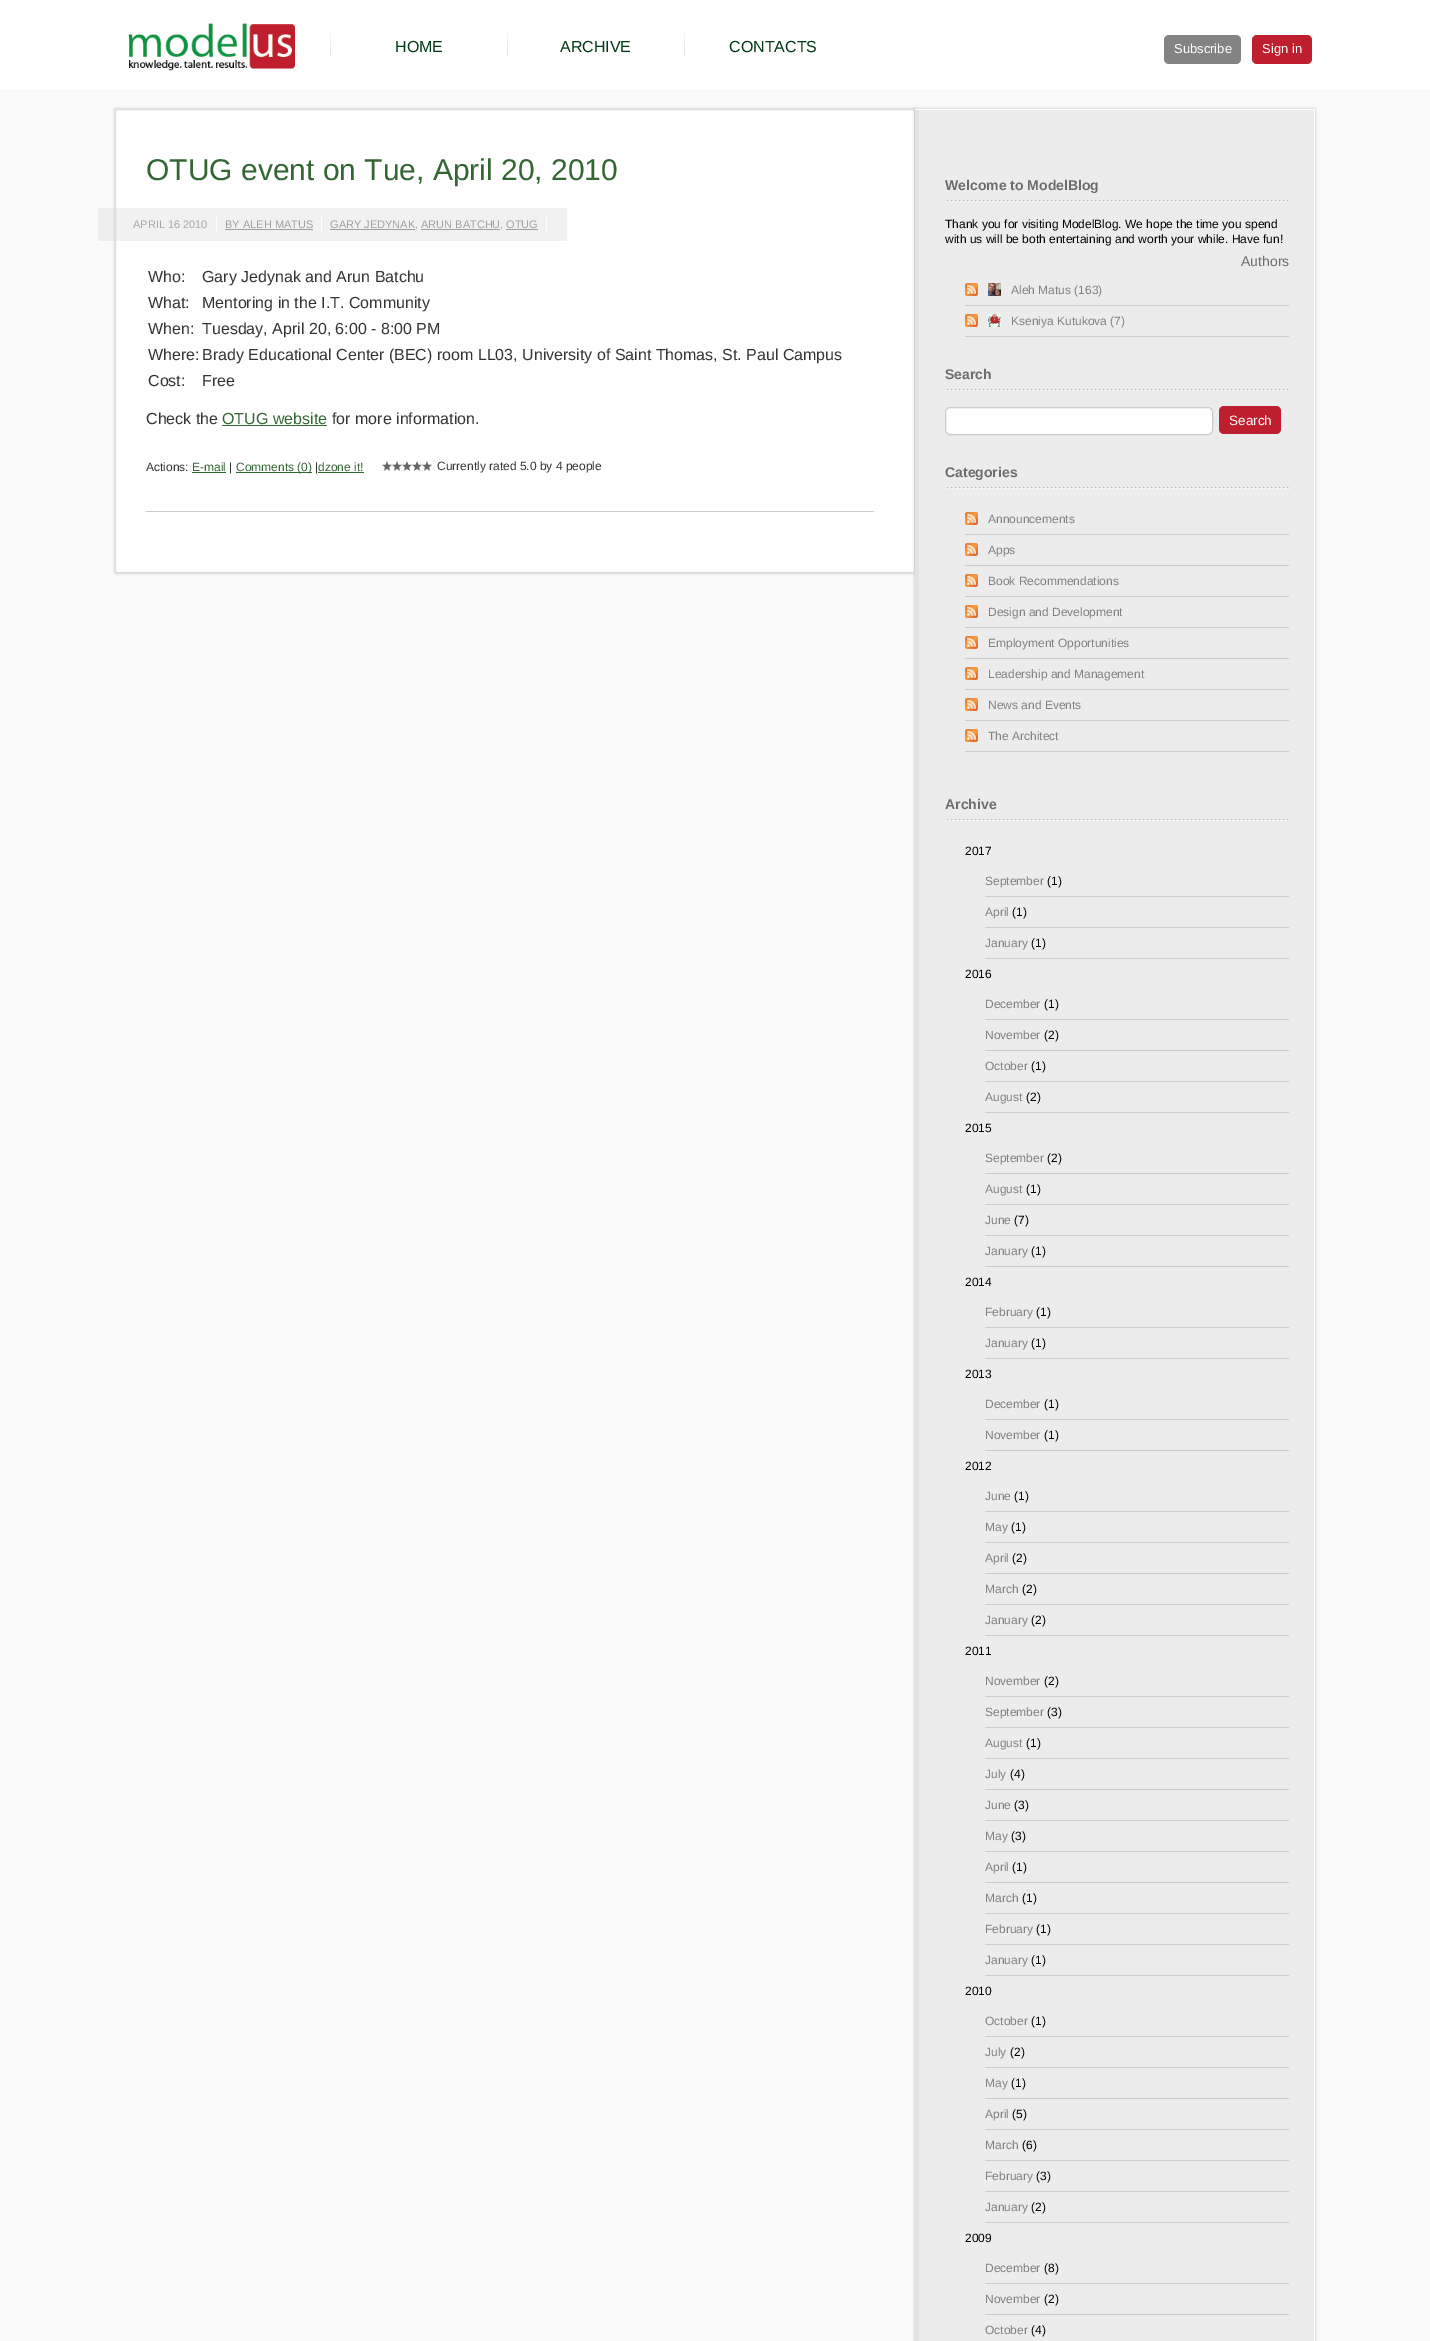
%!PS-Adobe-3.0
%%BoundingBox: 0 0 1430 2341
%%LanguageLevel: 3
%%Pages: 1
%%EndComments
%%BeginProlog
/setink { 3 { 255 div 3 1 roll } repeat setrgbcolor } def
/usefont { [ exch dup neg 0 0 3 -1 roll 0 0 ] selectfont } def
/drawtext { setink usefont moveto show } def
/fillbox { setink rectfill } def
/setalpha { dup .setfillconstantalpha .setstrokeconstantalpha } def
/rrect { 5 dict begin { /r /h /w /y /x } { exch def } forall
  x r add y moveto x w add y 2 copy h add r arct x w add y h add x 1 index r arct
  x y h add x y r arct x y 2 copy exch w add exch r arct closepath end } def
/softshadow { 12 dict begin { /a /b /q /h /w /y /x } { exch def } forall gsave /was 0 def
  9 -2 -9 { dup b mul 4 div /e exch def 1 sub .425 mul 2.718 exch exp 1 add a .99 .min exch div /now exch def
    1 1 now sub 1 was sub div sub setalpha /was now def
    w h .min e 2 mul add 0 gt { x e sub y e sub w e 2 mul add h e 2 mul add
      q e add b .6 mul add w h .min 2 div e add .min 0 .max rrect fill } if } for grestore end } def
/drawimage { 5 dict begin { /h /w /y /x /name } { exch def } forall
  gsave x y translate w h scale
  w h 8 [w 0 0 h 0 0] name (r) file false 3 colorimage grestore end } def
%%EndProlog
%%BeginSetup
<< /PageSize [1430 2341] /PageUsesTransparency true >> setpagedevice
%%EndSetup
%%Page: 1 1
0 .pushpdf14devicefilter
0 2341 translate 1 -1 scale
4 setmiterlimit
0 0 1430 2341 250 250 250 fillbox
0 0 1430 89 255 255 255 fillbox
(assets/img1.rgb) 128 23 167 48 drawimage
(assets/img2.rgb) 330 28 1 28 drawimage
(HOME) 395 52 /LiberationSans-Regular 16 1 56 21 drawtext
(assets/img2.rgb) 507 28 1 28 drawimage
(ARCHIVE) 560 52 /LiberationSans-Regular 16 1 56 21 drawtext
(assets/img2.rgb) 684 28 1 28 drawimage
(CONTACTS) 729 52 /LiberationSans-Regular 16 1 56 21 drawtext
131 131 131 setink
1164 35 77 29 5 rrect fill
(Subscribe) 1174 53 /LiberationSans-Regular 13 255 255 255 drawtext
190 30 45 setink
1252 35 60 29 5 rrect fill
(Sign in) 1262 53 /LiberationSans-Regular 13 255 255 255 drawtext
192 192 192 setink
115 109 800 464 0 1.5 1 softshadow
255 255 255 setink
115.5 109.5 moveto 914.5 109.5 lineto 914.5 572.5 lineto 115.5 572.5 lineto closepath gsave fill grestore
221 221 221 setink
stroke
146 511 728 1 204 204 204 fillbox
(OTUG event on Tue, April 20, 2010) 146 180 /LiberationSans-Regular 30 51 102 51 drawtext
0.4 setalpha
98 208 469 33 220 220 220 fillbox
1 setalpha
216 216 1 17 255 255 255 fillbox
(APRIL 16 2010) 133 228 /LiberationSans-Regular 11 166 166 166 drawtext
321 216 1 17 255 255 255 fillbox
(BY ALEH MATUS) 225 228 /LiberationSans-Regular 11 159 159 159 drawtext
225 229 88 1 159 159 159 fillbox
546 216 1 17 255 255 255 fillbox
(GARY JEDYNAK) 330 228 /LiberationSans-Regular 11 159 159 159 drawtext
330 229 85 1 159 159 159 fillbox
(,) 415 228 /LiberationSans-Regular 11 166 166 166 drawtext
(ARUN BATCHU) 421 228 /LiberationSans-Regular 11 159 159 159 drawtext
421 229 79 1 159 159 159 fillbox
(,) 500 228 /LiberationSans-Regular 11 166 166 166 drawtext
(OTUG) 506 228 /LiberationSans-Regular 11 159 159 159 drawtext
506 229 32 1 159 159 159 fillbox
(Who:) 148 282 /LiberationSans-Regular 16 51 51 51 drawtext
(Gary Jedynak and Arun Batchu) 202 282 /LiberationSans-Regular 16 51 51 51 drawtext
(What:) 148 308 /LiberationSans-Regular 16 51 51 51 drawtext
(Mentoring in the I.T. Community) 202 308 /LiberationSans-Regular 16 51 51 51 drawtext
(When:) 148 334 /LiberationSans-Regular 16 51 51 51 drawtext
(Tuesday, April 20, 6:00 - 8:00 PM) 202 334 /LiberationSans-Regular 16 51 51 51 drawtext
(Where:) 148 360 /LiberationSans-Regular 16 51 51 51 drawtext
(Brady Educational Center \(BEC\) room LL03, University of Saint Thomas, St. Paul Campus) 202 360 /LiberationSans-Regular 16 51 51 51 drawtext
(Cost:) 148 386 /LiberationSans-Regular 16 51 51 51 drawtext
(Free) 202 386 /LiberationSans-Regular 16 51 51 51 drawtext
(Check the) 146 424 /LiberationSans-Regular 16 51 51 51 drawtext
(OTUG website) 222 424 /LiberationSans-Regular 16 51 102 51 drawtext
222 425 105 1 51 102 51 fillbox
(for more information.) 332 424 /LiberationSans-Regular 16 51 51 51 drawtext
(Actions:) 146 471 /LiberationSans-Regular 12 51 51 51 drawtext
(E-mail) 192 471 /LiberationSans-Regular 12 51 102 51 drawtext
192 472 34 1 51 102 51 fillbox
(|) 229 471 /LiberationSans-Regular 12 51 51 51 drawtext
236 472 76 1 51 102 51 fillbox
(Comments \(0\)) 236 471 /LiberationSans-Regular 12 51 102 51 drawtext
(|) 315 471 /LiberationSans-Regular 12 51 51 51 drawtext
(dzone it!) 318 471 /LiberationSans-Regular 12 51 102 51 drawtext
318 472 46 1 51 102 51 fillbox
(assets/img3.rgb) 385 461 44 2 drawimage
(assets/img4.rgb) 382 461 50 10 drawimage
(Currently rated 5.0 by 4 people) 437 470 /LiberationSans-Regular 12 51 51 51 drawtext
192 192 192 setink
915 109 400 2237 0 1.5 1 softshadow
919 110 395 2231 236 236 236 fillbox
915 109 4 2232 227 227 227 fillbox
915 109 400 1 255 255 255 fillbox
1314 109 1 2232 255 255 255 fillbox
(assets/img5.rgb) 945 200 344 2 drawimage
(Welcome to ModelBlog) 945 190 /LiberationSans-Bold 14 109 109 109 drawtext
(Thank you for visiting ModelBlog. We hope the time you spend) 945 228 /LiberationSans-Regular 12 0 0 0 drawtext
(with us will be both entertaining and worth your while. Have fun!) 945 243 /LiberationSans-Regular 12 0 0 0 drawtext
(Authors) 1241 266 /LiberationSans-Regular 14 109 109 109 drawtext
965 305 324 1 204 204 204 fillbox
(assets/img6.rgb) 965 283 13 13 drawimage
(assets/img7.rgb) 988 283 13 13 drawimage
(Aleh Matus \(163\)) 1011 294 /LiberationSans-Regular 12 128 128 128 drawtext
965 336 324 1 204 204 204 fillbox
(assets/img6.rgb) 965 314 13 13 drawimage
(assets/img8.rgb) 988 314 13 13 drawimage
(Kseniya Kutukova \(7\)) 1011 325 /LiberationSans-Regular 12 128 128 128 drawtext
(assets/img5.rgb) 945 389 344 2 drawimage
(Search) 945 379 /LiberationSans-Bold 14 109 109 109 drawtext
255 255 255 setink
945.5 407.5 267 27 4.5 rrect gsave fill grestore
204 204 204 setink
stroke
190 30 45 setink
1219 406 62 28 5 rrect fill
(Search) 1229 425 /LiberationSans-Regular 13.5 255 255 255 drawtext
(assets/img5.rgb) 945 487 344 2 drawimage
(Categories) 945 477 /LiberationSans-Bold 14 109 109 109 drawtext
965 534 324 1 204 204 204 fillbox
(assets/img6.rgb) 965 512 13 13 drawimage
(Announcements) 988 523 /LiberationSans-Regular 12 128 128 128 drawtext
965 565 324 1 204 204 204 fillbox
(assets/img6.rgb) 965 543 13 13 drawimage
(Apps) 988 554 /LiberationSans-Regular 12 128 128 128 drawtext
965 596 324 1 204 204 204 fillbox
(assets/img6.rgb) 965 574 13 13 drawimage
(Book Recommendations) 988 585 /LiberationSans-Regular 12 128 128 128 drawtext
965 627 324 1 204 204 204 fillbox
(assets/img9.rgb) 965 605 13 13 drawimage
(Design and Development) 988 616 /LiberationSans-Regular 12 128 128 128 drawtext
965 658 324 1 204 204 204 fillbox
(assets/img6.rgb) 965 636 13 13 drawimage
(Employment Opportunities) 988 647 /LiberationSans-Regular 12 128 128 128 drawtext
965 689 324 1 204 204 204 fillbox
(assets/img6.rgb) 965 667 13 13 drawimage
(Leadership and Management) 988 678 /LiberationSans-Regular 12 128 128 128 drawtext
965 720 324 1 204 204 204 fillbox
(assets/img6.rgb) 965 698 13 13 drawimage
(News and Events) 988 709 /LiberationSans-Regular 12 128 128 128 drawtext
965 751 324 1 204 204 204 fillbox
(assets/img6.rgb) 965 729 13 13 drawimage
(The Architect) 988 740 /LiberationSans-Regular 12 128 128 128 drawtext
(assets/img5.rgb) 945 819 344 2 drawimage
(Archive) 945 809 /LiberationSans-Bold 14 109 109 109 drawtext
(2017) 965 855 /LiberationSans-Regular 12 0 0 0 drawtext
985 896 304 1 204 204 204 fillbox
(September) 985 885 /LiberationSans-Regular 12 128 128 128 drawtext
(\(1\)) 1047 885 /LiberationSans-Regular 12 0 0 0 drawtext
985 927 304 1 204 204 204 fillbox
(April) 985 916 /LiberationSans-Regular 12 128 128 128 drawtext
(\(1\)) 1012 916 /LiberationSans-Regular 12 0 0 0 drawtext
985 958 304 1 204 204 204 fillbox
(January) 985 947 /LiberationSans-Regular 12 128 128 128 drawtext
(\(1\)) 1031 947 /LiberationSans-Regular 12 0 0 0 drawtext
(2016) 965 978 /LiberationSans-Regular 12 0 0 0 drawtext
985 1019 304 1 204 204 204 fillbox
(December) 985 1008 /LiberationSans-Regular 12 128 128 128 drawtext
(\(1\)) 1044 1008 /LiberationSans-Regular 12 0 0 0 drawtext
985 1050 304 1 204 204 204 fillbox
(November) 985 1039 /LiberationSans-Regular 12 128 128 128 drawtext
(\(2\)) 1044 1039 /LiberationSans-Regular 12 0 0 0 drawtext
985 1081 304 1 204 204 204 fillbox
(October) 985 1070 /LiberationSans-Regular 12 128 128 128 drawtext
(\(1\)) 1031 1070 /LiberationSans-Regular 12 0 0 0 drawtext
985 1112 304 1 204 204 204 fillbox
(August) 985 1101 /LiberationSans-Regular 12 128 128 128 drawtext
(\(2\)) 1026 1101 /LiberationSans-Regular 12 0 0 0 drawtext
(2015) 965 1132 /LiberationSans-Regular 12 0 0 0 drawtext
985 1173 304 1 204 204 204 fillbox
(September) 985 1162 /LiberationSans-Regular 12 128 128 128 drawtext
(\(2\)) 1047 1162 /LiberationSans-Regular 12 0 0 0 drawtext
985 1204 304 1 204 204 204 fillbox
(August) 985 1193 /LiberationSans-Regular 12 128 128 128 drawtext
(\(1\)) 1026 1193 /LiberationSans-Regular 12 0 0 0 drawtext
985 1235 304 1 204 204 204 fillbox
(June) 985 1224 /LiberationSans-Regular 12 128 128 128 drawtext
(\(7\)) 1014 1224 /LiberationSans-Regular 12 0 0 0 drawtext
985 1266 304 1 204 204 204 fillbox
(January) 985 1255 /LiberationSans-Regular 12 128 128 128 drawtext
(\(1\)) 1031 1255 /LiberationSans-Regular 12 0 0 0 drawtext
(2014) 965 1286 /LiberationSans-Regular 12 0 0 0 drawtext
985 1327 304 1 204 204 204 fillbox
(February) 985 1316 /LiberationSans-Regular 12 128 128 128 drawtext
(\(1\)) 1036 1316 /LiberationSans-Regular 12 0 0 0 drawtext
985 1358 304 1 204 204 204 fillbox
(January) 985 1347 /LiberationSans-Regular 12 128 128 128 drawtext
(\(1\)) 1031 1347 /LiberationSans-Regular 12 0 0 0 drawtext
(2013) 965 1378 /LiberationSans-Regular 12 0 0 0 drawtext
985 1419 304 1 204 204 204 fillbox
(December) 985 1408 /LiberationSans-Regular 12 128 128 128 drawtext
(\(1\)) 1044 1408 /LiberationSans-Regular 12 0 0 0 drawtext
985 1450 304 1 204 204 204 fillbox
(November) 985 1439 /LiberationSans-Regular 12 128 128 128 drawtext
(\(1\)) 1044 1439 /LiberationSans-Regular 12 0 0 0 drawtext
(2012) 965 1470 /LiberationSans-Regular 12 0 0 0 drawtext
985 1511 304 1 204 204 204 fillbox
(June) 985 1500 /LiberationSans-Regular 12 128 128 128 drawtext
(\(1\)) 1014 1500 /LiberationSans-Regular 12 0 0 0 drawtext
985 1542 304 1 204 204 204 fillbox
(May) 985 1531 /LiberationSans-Regular 12 128 128 128 drawtext
(\(1\)) 1011 1531 /LiberationSans-Regular 12 0 0 0 drawtext
985 1573 304 1 204 204 204 fillbox
(April) 985 1562 /LiberationSans-Regular 12 128 128 128 drawtext
(\(2\)) 1012 1562 /LiberationSans-Regular 12 0 0 0 drawtext
985 1604 304 1 204 204 204 fillbox
(March) 985 1593 /LiberationSans-Regular 12 128 128 128 drawtext
(\(2\)) 1022 1593 /LiberationSans-Regular 12 0 0 0 drawtext
985 1635 304 1 204 204 204 fillbox
(January) 985 1624 /LiberationSans-Regular 12 128 128 128 drawtext
(\(2\)) 1031 1624 /LiberationSans-Regular 12 0 0 0 drawtext
(2011) 965 1655 /LiberationSans-Regular 12 0 0 0 drawtext
985 1696 304 1 204 204 204 fillbox
(November) 985 1685 /LiberationSans-Regular 12 128 128 128 drawtext
(\(2\)) 1044 1685 /LiberationSans-Regular 12 0 0 0 drawtext
985 1727 304 1 204 204 204 fillbox
(September) 985 1716 /LiberationSans-Regular 12 128 128 128 drawtext
(\(3\)) 1047 1716 /LiberationSans-Regular 12 0 0 0 drawtext
985 1758 304 1 204 204 204 fillbox
(August) 985 1747 /LiberationSans-Regular 12 128 128 128 drawtext
(\(1\)) 1026 1747 /LiberationSans-Regular 12 0 0 0 drawtext
985 1789 304 1 204 204 204 fillbox
(July) 985 1778 /LiberationSans-Regular 12 128 128 128 drawtext
(\(4\)) 1010 1778 /LiberationSans-Regular 12 0 0 0 drawtext
985 1820 304 1 204 204 204 fillbox
(June) 985 1809 /LiberationSans-Regular 12 128 128 128 drawtext
(\(3\)) 1014 1809 /LiberationSans-Regular 12 0 0 0 drawtext
985 1851 304 1 204 204 204 fillbox
(May) 985 1840 /LiberationSans-Regular 12 128 128 128 drawtext
(\(3\)) 1011 1840 /LiberationSans-Regular 12 0 0 0 drawtext
985 1882 304 1 204 204 204 fillbox
(April) 985 1871 /LiberationSans-Regular 12 128 128 128 drawtext
(\(1\)) 1012 1871 /LiberationSans-Regular 12 0 0 0 drawtext
985 1913 304 1 204 204 204 fillbox
(March) 985 1902 /LiberationSans-Regular 12 128 128 128 drawtext
(\(1\)) 1022 1902 /LiberationSans-Regular 12 0 0 0 drawtext
985 1944 304 1 204 204 204 fillbox
(February) 985 1933 /LiberationSans-Regular 12 128 128 128 drawtext
(\(1\)) 1036 1933 /LiberationSans-Regular 12 0 0 0 drawtext
985 1975 304 1 204 204 204 fillbox
(January) 985 1964 /LiberationSans-Regular 12 128 128 128 drawtext
(\(1\)) 1031 1964 /LiberationSans-Regular 12 0 0 0 drawtext
(2010) 965 1995 /LiberationSans-Regular 12 0 0 0 drawtext
985 2036 304 1 204 204 204 fillbox
(October) 985 2025 /LiberationSans-Regular 12 128 128 128 drawtext
(\(1\)) 1031 2025 /LiberationSans-Regular 12 0 0 0 drawtext
985 2067 304 1 204 204 204 fillbox
(July) 985 2056 /LiberationSans-Regular 12 128 128 128 drawtext
(\(2\)) 1010 2056 /LiberationSans-Regular 12 0 0 0 drawtext
985 2098 304 1 204 204 204 fillbox
(May) 985 2087 /LiberationSans-Regular 12 128 128 128 drawtext
(\(1\)) 1011 2087 /LiberationSans-Regular 12 0 0 0 drawtext
985 2129 304 1 204 204 204 fillbox
(April) 985 2118 /LiberationSans-Regular 12 128 128 128 drawtext
(\(5\)) 1012 2118 /LiberationSans-Regular 12 0 0 0 drawtext
985 2160 304 1 204 204 204 fillbox
(March) 985 2149 /LiberationSans-Regular 12 128 128 128 drawtext
(\(6\)) 1022 2149 /LiberationSans-Regular 12 0 0 0 drawtext
985 2191 304 1 204 204 204 fillbox
(February) 985 2180 /LiberationSans-Regular 12 128 128 128 drawtext
(\(3\)) 1036 2180 /LiberationSans-Regular 12 0 0 0 drawtext
985 2222 304 1 204 204 204 fillbox
(January) 985 2211 /LiberationSans-Regular 12 128 128 128 drawtext
(\(2\)) 1031 2211 /LiberationSans-Regular 12 0 0 0 drawtext
(2009) 965 2242 /LiberationSans-Regular 12 0 0 0 drawtext
985 2283 304 1 204 204 204 fillbox
(December) 985 2272 /LiberationSans-Regular 12 128 128 128 drawtext
(\(8\)) 1044 2272 /LiberationSans-Regular 12 0 0 0 drawtext
985 2314 304 1 204 204 204 fillbox
(November) 985 2303 /LiberationSans-Regular 12 128 128 128 drawtext
(\(2\)) 1044 2303 /LiberationSans-Regular 12 0 0 0 drawtext
(October) 985 2334 /LiberationSans-Regular 12 128 128 128 drawtext
(\(4\)) 1031 2334 /LiberationSans-Regular 12 0 0 0 drawtext
.poppdf14devicefilter showpage
%%EOF
